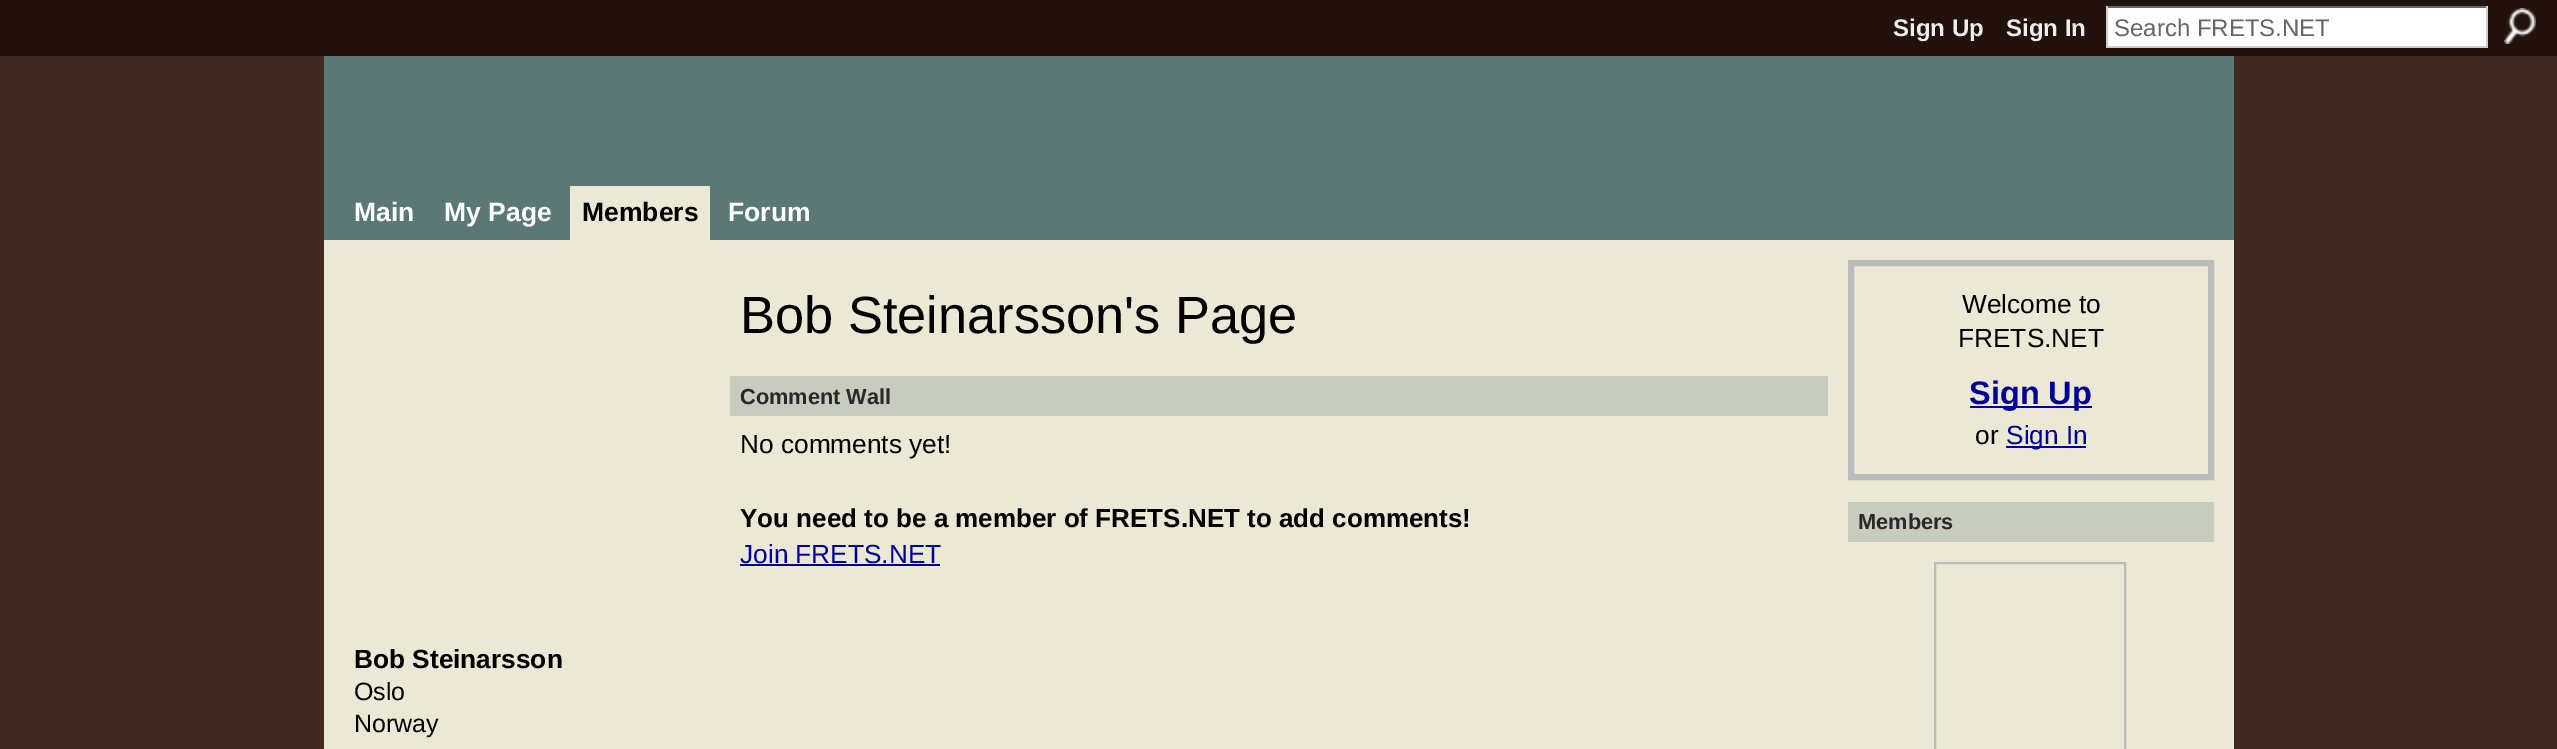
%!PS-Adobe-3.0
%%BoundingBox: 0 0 2557 749
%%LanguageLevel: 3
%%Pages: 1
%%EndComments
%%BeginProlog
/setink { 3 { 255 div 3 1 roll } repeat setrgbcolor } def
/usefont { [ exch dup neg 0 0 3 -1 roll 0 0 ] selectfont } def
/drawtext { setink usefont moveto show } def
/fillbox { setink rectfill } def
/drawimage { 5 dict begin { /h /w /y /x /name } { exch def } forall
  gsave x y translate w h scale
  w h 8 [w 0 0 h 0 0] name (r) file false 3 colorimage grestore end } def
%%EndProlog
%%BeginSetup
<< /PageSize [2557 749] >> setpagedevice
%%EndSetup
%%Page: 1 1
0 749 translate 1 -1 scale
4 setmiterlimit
0 0 2557 749 65 42 34 fillbox
0 0 2557 56 35 18 12 fillbox
(Sign Up) 1893 36 /LiberationSans-Bold 24 238 238 238 drawtext
(Sign In) 2006 36 /LiberationSans-Bold 24 238 238 238 drawtext
2108 8 378 38 255 255 255 fillbox
2106 6 382 2 102 102 102 fillbox
2486 6 2 42 204 204 204 fillbox
2106 46 382 2 204 204 204 fillbox
2106 6 2 42 204 204 204 fillbox
(Search FRETS.NET) 2114 36 /LiberationSans-Regular 24 102 102 102 drawtext
(assets/img1.rgb) 2504 8 32 36 drawimage
324 56 1910 184 91 120 118 fillbox
(Main) 354 221 /LiberationSans-Bold 26.5 255 255 255 drawtext
(My Page) 444 221 /LiberationSans-Bold 26.5 255 255 255 drawtext
570 186 140 54 236 232 214 fillbox
(Members) 582 221 /LiberationSans-Bold 26.5 0 0 0 drawtext
(Forum) 728 221 /LiberationSans-Bold 26.5 255 255 255 drawtext
324 240 1910 509 236 232 214 fillbox
(Bob Steinarsson's Page) 740 333 /LiberationSans-Regular 52.4 0 0 0 drawtext
730 376 1098 40 200 204 190 fillbox
(Comment Wall) 740 404 /LiberationSans-Bold 21.75 41 41 41 drawtext
(No comments yet!) 740 453 /LiberationSans-Regular 26.25 0 0 0 drawtext
(You need to be a member of FRETS.NET to add comments!) 740 527 /LiberationSans-Bold 26 0 0 0 drawtext
(Join FRETS.NET) 740 563 /LiberationSans-Regular 26.25 0 0 153 drawtext
740 564 200 2 0 0 153 fillbox
(Bob Steinarsson) 354 668 /LiberationSans-Bold 26.25 0 0 0 drawtext
(Oslo) 354 700 /LiberationSans-Regular 25 0 0 0 drawtext
(Norway) 354 732 /LiberationSans-Regular 25 0 0 0 drawtext
187 187 187 setink
6 setlinewidth
1851 263 360 214 rectstroke
(Welcome to) 1962 313 /LiberationSans-Regular 26.25 0 0 0 drawtext
(FRETS.NET) 1958 347 /LiberationSans-Regular 26.25 0 0 0 drawtext
1970 406 122 2 0 0 153 fillbox
(Sign Up) 1969 404 /LiberationSans-Bold 32.5 0 0 153 drawtext
(or) 1975 444 /LiberationSans-Regular 26.25 0 0 0 drawtext
2006 446 80 2 0 0 153 fillbox
(Sign In) 2006 444 /LiberationSans-Regular 26.25 0 0 153 drawtext
1848 502 366 40 200 204 190 fillbox
(Members) 1858 529 /LiberationSans-Bold 21.75 41 41 41 drawtext
187 187 187 setink
2 setlinewidth
1935 563 190 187 rectstroke
showpage
%%EOF
